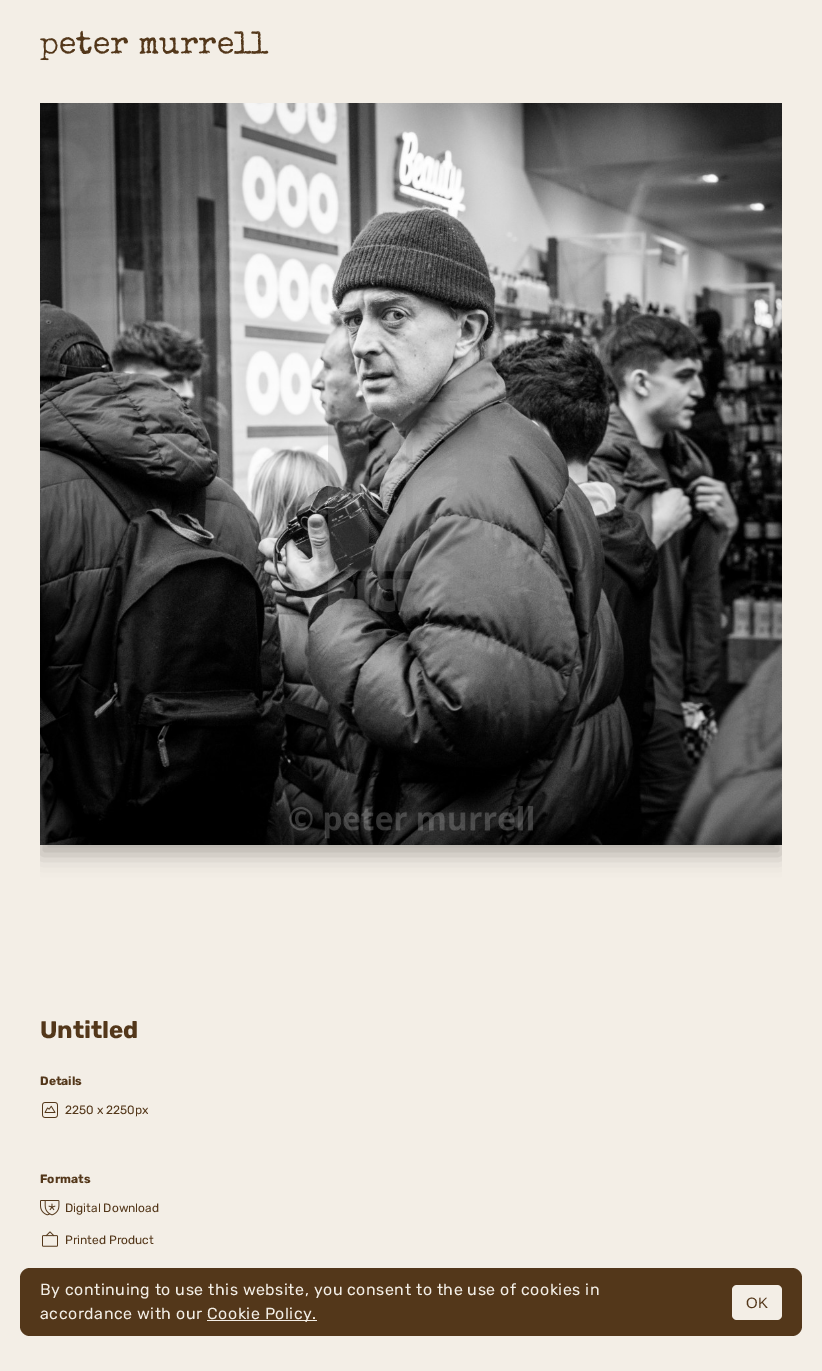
%!PS-Adobe-3.0
%%BoundingBox: 0 0 822 1371
%%LanguageLevel: 3
%%Pages: 1
%%EndComments
%%BeginProlog
/setink { 3 { 255 div 3 1 roll } repeat setrgbcolor } def
/usefont { [ exch dup neg 0 0 3 -1 roll 0 0 ] selectfont } def
/drawtext { setink usefont moveto show } def
/fillbox { setink rectfill } def
/setalpha { dup .setfillconstantalpha .setstrokeconstantalpha } def
/rrect { 5 dict begin { /r /h /w /y /x } { exch def } forall
  x r add y moveto x w add y 2 copy h add r arct x w add y h add x 1 index r arct
  x y h add x y r arct x y 2 copy exch w add exch r arct closepath end } def
/softshadow { 12 dict begin { /a /b /q /h /w /y /x } { exch def } forall gsave /was 0 def
  9 -2 -9 { dup b mul 4 div /e exch def 1 sub .425 mul 2.718 exch exp 1 add a .99 .min exch div /now exch def
    1 1 now sub 1 was sub div sub setalpha /was now def
    w h .min e 2 mul add 0 gt { x e sub y e sub w e 2 mul add h e 2 mul add
      q e add b .6 mul add w h .min 2 div e add .min 0 .max rrect fill } if } for grestore end } def
/drawimage { 5 dict begin { /h /w /y /x /name } { exch def } forall
  gsave x y translate w h scale
  w h 8 [w 0 0 h 0 0] name (r) file false 3 colorimage grestore end } def
%%EndProlog
%%BeginSetup
<< /PageSize [822 1371] /PageUsesTransparency true >> setpagedevice
%%EndSetup
%%Page: 1 1
0 .pushpdf14devicefilter
0 1371 translate 1 -1 scale
4 setmiterlimit
0 0 822 1371 243 238 230 fillbox
(peter murrell) 40 53 /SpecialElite-Regular 32 83 55 26 drawtext
gsave
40 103 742 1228 rectclip
0 0 0 setink
40 113 742 742 0 10 0.25 softshadow
grestore
(assets/img1.rgb) 40 103 742 742 drawimage
(Untitled) 40 1038 /Rubik-Bold 24 83 55 26 drawtext
(Details) 40 1085 /Rubik-Bold 12 83 55 26 drawtext
(assets/img2.rgb) 42 1102 16 16 drawimage
(2250 x 2250px) 65 1114 /Rubik-Regular 12 83 55 26 drawtext
(Formats) 40 1183 /Rubik-Bold 12 83 55 26 drawtext
(assets/img3.rgb) 40 1200 20 16 drawimage
(Digital Download) 65 1212 /Rubik-Regular 12 83 55 26 drawtext
(assets/img4.rgb) 42 1231 16 16 drawimage
(Printed Product) 65 1244 /Rubik-Regular 12 83 55 26 drawtext
20 1268 782 68 10 rrect fill
/Rubik-Regular 16 usefont
243 238 230 setink
40 1295 moveto 0.5 0 (By continuing to use this website, you consent to the use of cookies in) ashow
40 1319 moveto 0.5 0 (accordance with our) ashow
207 1320 110 1 243 238 230 fillbox
207 1319 moveto 0.5 0 (Cookie Policy.) ashow
732 1285 50 35 5 rrect fill
(OK) 746 1308 /LiberationSans-Regular 15 83 55 26 drawtext
.poppdf14devicefilter showpage
%%EOF
